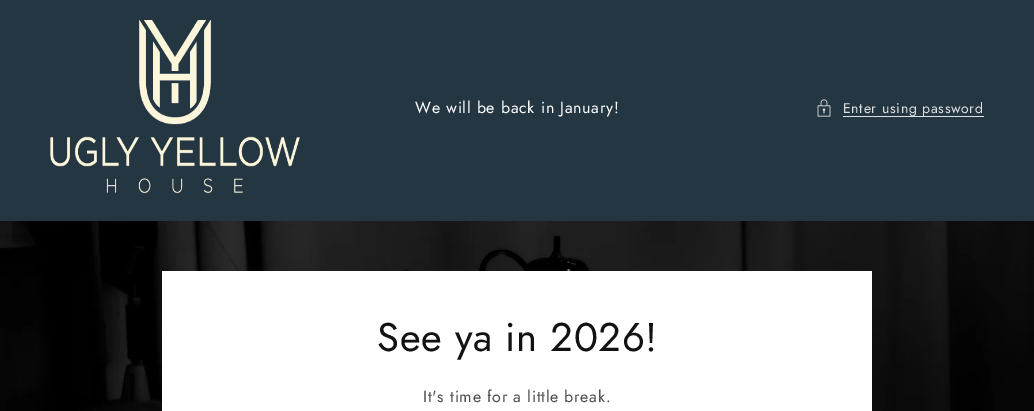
%!PS-Adobe-3.0
%%BoundingBox: 0 0 1034 411
%%LanguageLevel: 3
%%Pages: 1
%%EndComments
%%BeginProlog
/setink { 3 { 255 div 3 1 roll } repeat setrgbcolor } def
/usefont { [ exch dup neg 0 0 3 -1 roll 0 0 ] selectfont } def
/fillbox { setink rectfill } def
/drawimage { 5 dict begin { /h /w /y /x /name } { exch def } forall
  gsave x y translate w h scale
  w h 8 [w 0 0 h 0 0] name (r) file false 3 colorimage grestore end } def
%%EndProlog
%%BeginSetup
<< /PageSize [1034 411] >> setpagedevice
%%EndSetup
%%Page: 1 1
0 411 translate 1 -1 scale
4 setmiterlimit
0 0 1034 411 36 54 66 fillbox
(assets/img1.rgb) 50 20 250 174 drawimage
/Jost-Regular 16 usefont
255 255 255 setink
415 113 moveto 0.7 0 (We will be back in January!) ashow
(assets/img2.rgb) 817 99 14 18 drawimage
843 116 141 1 222 225 227 fillbox
/Jost-Regular 14 usefont
843 113 moveto 0.7 0 (Enter using password) ashow
(assets/img3.rgb) 0 221 1034 190 drawimage
162 271 710 140 255 255 255 fillbox
/Jost-Regular 40 usefont
18 18 18 setink
377 351 moveto 0.6 0 (See ya in 2026!) ashow
/Jost-Regular 16 usefont
77 77 77 setink
423 402 moveto 0.7 0 (It's time for a little break.) ashow
showpage
%%EOF
